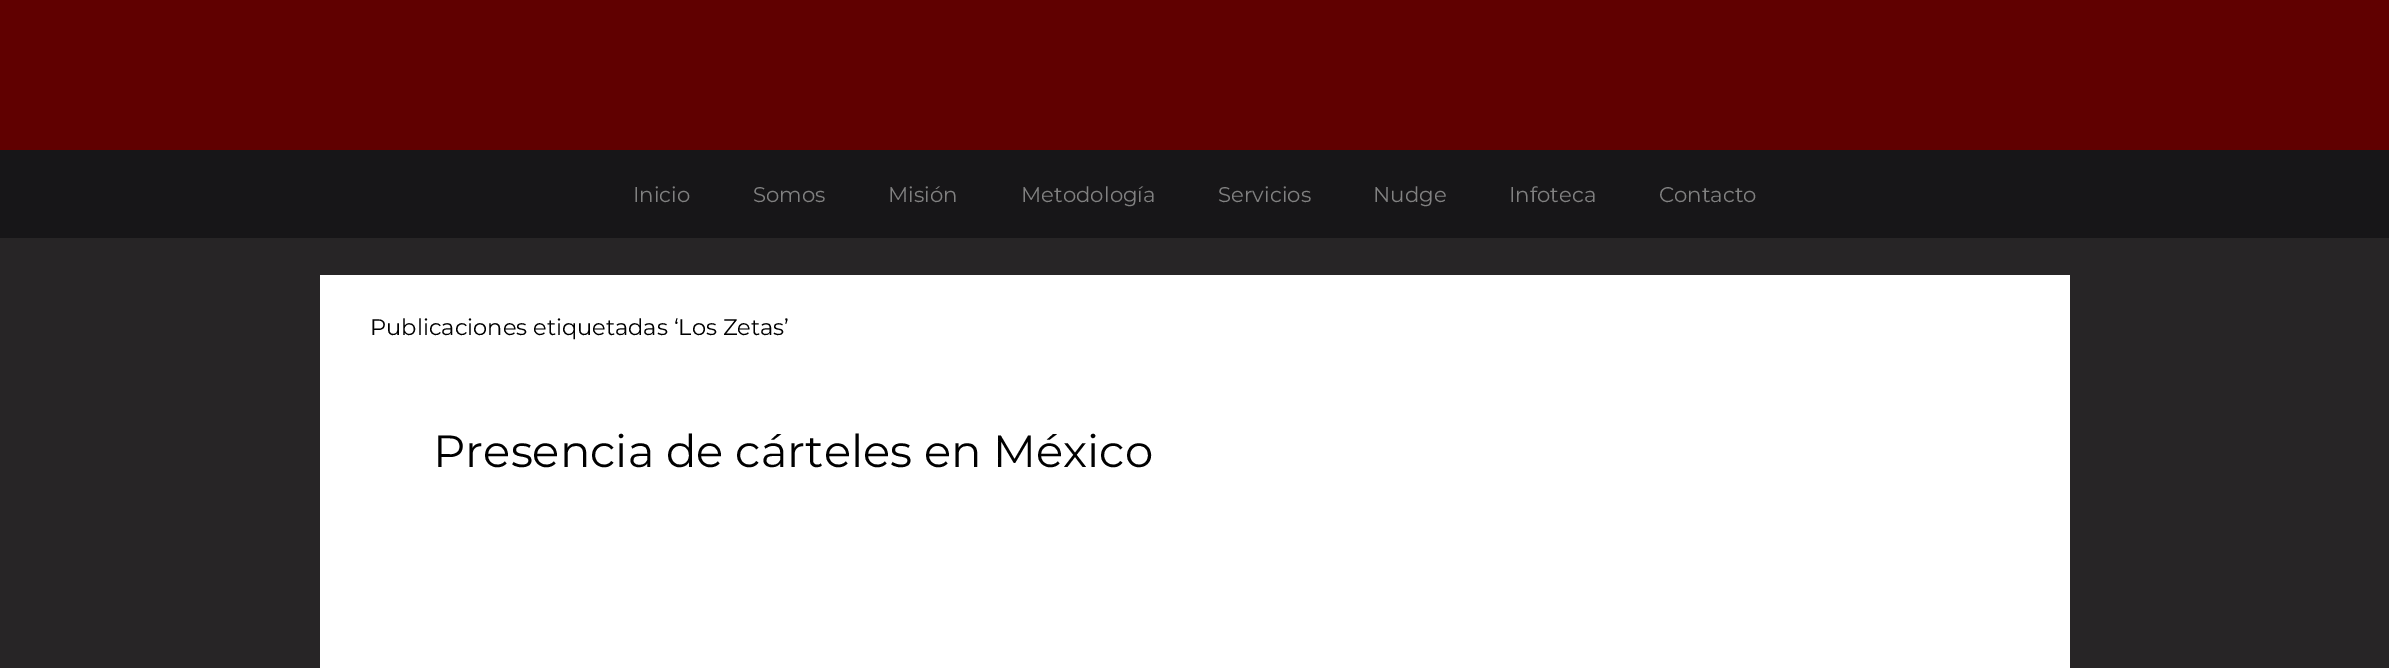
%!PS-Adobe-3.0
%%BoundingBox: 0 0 2389 668
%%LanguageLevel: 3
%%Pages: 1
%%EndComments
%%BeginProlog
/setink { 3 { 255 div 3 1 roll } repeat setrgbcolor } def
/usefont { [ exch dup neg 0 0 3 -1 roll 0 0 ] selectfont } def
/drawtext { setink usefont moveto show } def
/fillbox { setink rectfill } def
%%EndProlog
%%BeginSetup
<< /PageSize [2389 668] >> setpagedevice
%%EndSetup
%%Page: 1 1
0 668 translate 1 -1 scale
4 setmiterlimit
0 0 2389 668 39 37 38 fillbox
0 0 2389 150 96 0 0 fillbox
0 150 2389 88 23 22 24 fillbox
(Inicio) 633 202 /Montserrat-Thin 21.25 129 129 129 drawtext
(Somos) 753 202 /Montserrat-Thin 21.25 129 129 129 drawtext
(Misión) 888 202 /Montserrat-Thin 21.25 129 129 129 drawtext
(Metodología) 1021 202 /Montserrat-Thin 21.25 129 129 129 drawtext
(Servicios) 1218 202 /Montserrat-Thin 21.25 129 129 129 drawtext
(Nudge) 1373 202 /Montserrat-Thin 21.25 129 129 129 drawtext
(Infoteca) 1509 202 /Montserrat-Thin 21.25 129 129 129 drawtext
(Contacto) 1659 202 /Montserrat-Thin 21.25 129 129 129 drawtext
320 275 1750 393 255 255 255 fillbox
(Publicaciones etiquetadas ‘Los Zetas’) 370 335 /Montserrat-Thin 22.5 0 0 0 drawtext
(Presencia de cárteles en México) 433 467 /Montserrat-Thin 45 0 0 0 drawtext
showpage
%%EOF
